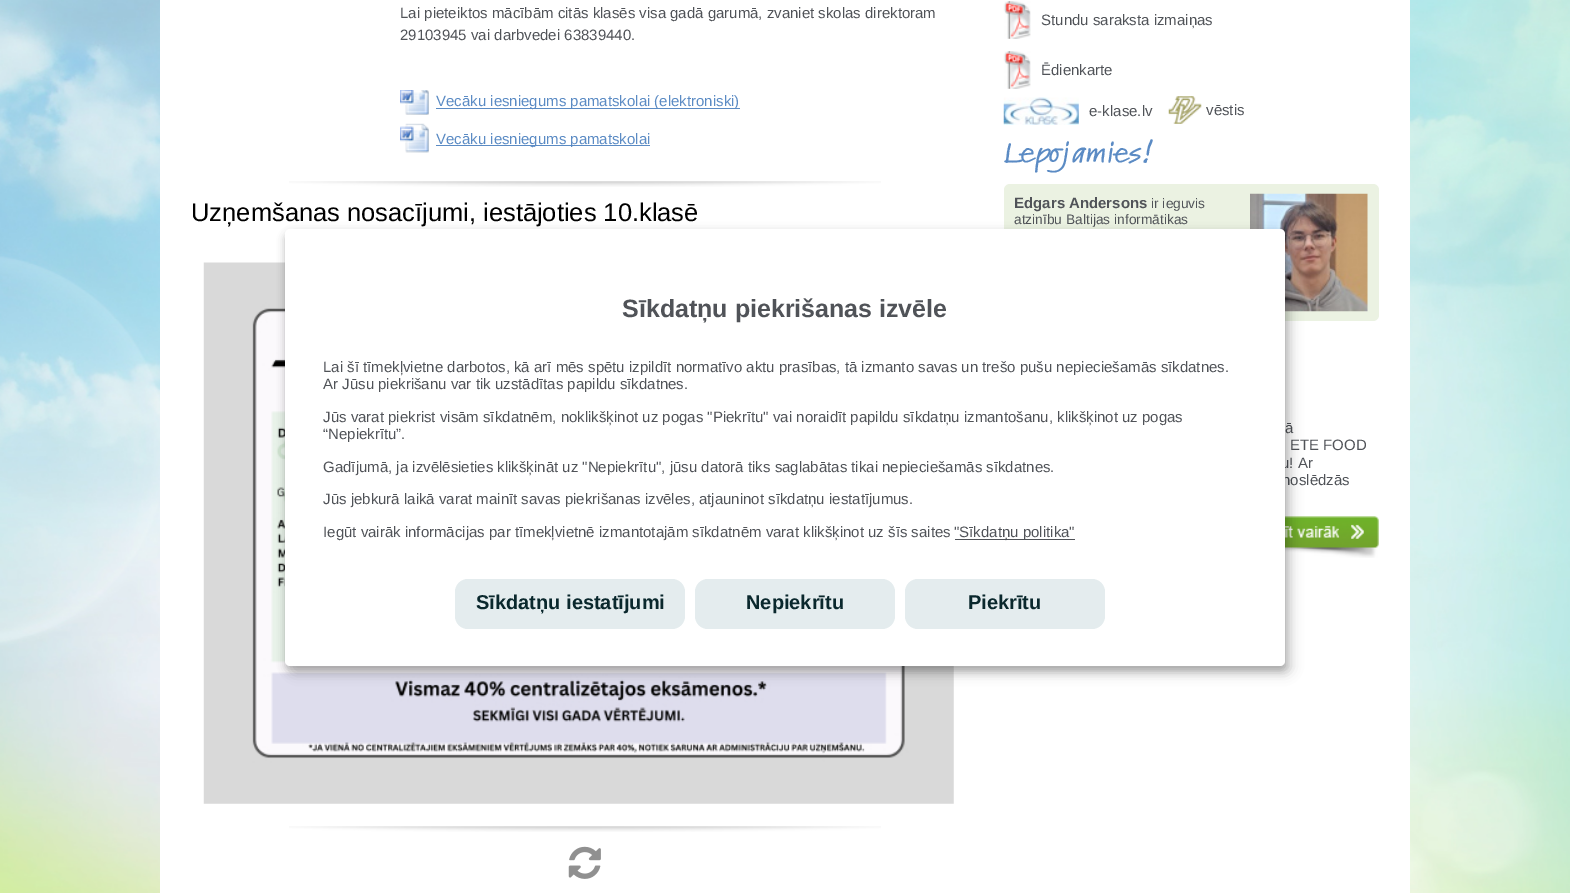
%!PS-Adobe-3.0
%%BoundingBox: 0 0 1570 893
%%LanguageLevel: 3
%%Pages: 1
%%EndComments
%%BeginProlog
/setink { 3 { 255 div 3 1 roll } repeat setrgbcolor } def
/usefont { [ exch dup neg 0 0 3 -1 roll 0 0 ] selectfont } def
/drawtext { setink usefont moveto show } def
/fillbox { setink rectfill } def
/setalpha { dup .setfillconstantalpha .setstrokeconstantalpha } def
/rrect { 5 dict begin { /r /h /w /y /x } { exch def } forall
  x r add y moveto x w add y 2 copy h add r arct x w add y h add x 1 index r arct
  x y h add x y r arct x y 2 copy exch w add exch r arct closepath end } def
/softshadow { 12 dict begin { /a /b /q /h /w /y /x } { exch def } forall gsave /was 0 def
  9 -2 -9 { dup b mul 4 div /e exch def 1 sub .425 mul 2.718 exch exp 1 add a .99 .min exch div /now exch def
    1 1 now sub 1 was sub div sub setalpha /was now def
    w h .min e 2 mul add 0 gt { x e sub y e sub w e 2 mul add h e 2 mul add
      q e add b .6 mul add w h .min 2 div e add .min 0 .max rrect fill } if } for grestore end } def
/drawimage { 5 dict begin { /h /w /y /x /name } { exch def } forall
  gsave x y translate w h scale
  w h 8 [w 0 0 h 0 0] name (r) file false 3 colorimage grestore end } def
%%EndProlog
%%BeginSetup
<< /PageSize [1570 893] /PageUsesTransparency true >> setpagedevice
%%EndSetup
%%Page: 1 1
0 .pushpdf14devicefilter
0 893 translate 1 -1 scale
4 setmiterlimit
0 0 1570 893 255 255 255 fillbox
(assets/img1.rgb) 0 0 1570 893 drawimage
160 0 1250 893 255 255 255 fillbox
(assets/img2.rgb) 289 181 592 6 drawimage
(Lai pieteiktos mācībām citās klasēs visa gadā garumā, zvaniet skolas direktoram) 400 18 /LiberationSans-Regular 15 80 83 88 drawtext
(29103945 vai darbvedei 63839440.) 400 40 /LiberationSans-Regular 15 80 83 88 drawtext
(assets/img3.rgb) 400 90 29 25 drawimage
436 108 304 1 91 139 196 fillbox
(Vecāku iesniegums pamatskolai \(elektroniski\)) 436 106 /LiberationSans-Regular 15 91 139 196 drawtext
(assets/img4.rgb) 400 123 29 30 drawimage
436 145 214 1 91 139 196 fillbox
(Vecāku iesniegums pamatskolai) 436 144 /LiberationSans-Regular 15 91 139 196 drawtext
(assets/img2.rgb) 289 826 592 6 drawimage
(Uzņemšanas nosacījumi, iestājoties 10.klasē) 191 221 /LiberationSans-Regular 25.5 0 0 0 drawtext
(assets/img5.rgb) 203 262 751 542 drawimage
(assets/img6.rgb) 568 846 33 33 drawimage
(assets/img7.rgb) 1003 1 28 38 drawimage
(Stundu saraksta izmaiņas) 1041 25 /LiberationSans-Regular 15 80 83 88 drawtext
(assets/img7.rgb) 1003 51 28 38 drawimage
(Ēdienkarte) 1041 75 /LiberationSans-Regular 15 80 83 88 drawtext
(assets/img8.rgb) 1003 97 76 28 drawimage
(e-klase.lv) 1089 116 /LiberationSans-Regular 15 80 83 88 drawtext
(assets/img9.rgb) 1168 96 34 28 drawimage
(vēstis) 1206 115 /LiberationSans-Regular 15 80 83 88 drawtext
(Lepojamies!) 1004 163 /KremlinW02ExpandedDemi-SemiBold 27 91 139 196 drawtext
235 242 226 setink
1004 184 375 137 6 rrect fill
(Edgars Andersons) 1014 208 /LiberationSans-Bold 15 80 83 88 drawtext
(ir ieguvis) 1151 208 /LiberationSans-Regular 13.75 80 83 88 drawtext
(atzinību Baltijas informātikas) 1014 224 /LiberationSans-Regular 13.75 80 83 88 drawtext
(assets/img10.rgb) 1250 193 118 119 drawimage
(ā) 1285 433 /LiberationSans-Regular 15 80 83 88 drawtext
(ETE FOOD) 1290 450 /LiberationSans-Regular 15 80 83 88 drawtext
(u! Ar) 1281 468 /LiberationSans-Regular 15 80 83 88 drawtext
(noslēdzās) 1282 485 /LiberationSans-Regular 15 80 83 88 drawtext
(assets/img11.rgb) 1285 516 94 42 drawimage
0 0 0 setink
291 235 1000 438 5 6 0.19 softshadow
285 234 1000 437 5 4 0.2 softshadow
255 255 255 setink
285 229 1000 437 5 rrect fill
(Sīkdatņu piekrišanas izvēle) 622 317 /LiberationSans-Bold 25 80 83 88 drawtext
(Lai šī tīmekļvietne darbotos, kā arī mēs spētu izpildīt normatīvo aktu prasības, tā izmanto savas un trešo pušu nepieciešamās sīkdatnes.) 323 372 /LiberationSans-Regular 15 80 83 88 drawtext
(Ar Jūsu piekrišanu var tik uzstādītas papildu sīkdatnes.) 323 389 /LiberationSans-Regular 15 80 83 88 drawtext
(Jūs varat piekrist visām sīkdatnēm, noklikšķinot uz pogas "Piekrītu" vai noraidīt papildu sīkdatņu izmantošanu, klikšķinot uz pogas) 323 422 /LiberationSans-Regular 15 80 83 88 drawtext
(“Nepiekrītu”.) 323 439 /LiberationSans-Regular 15 80 83 88 drawtext
(Gadījumā, ja izvēlēsieties klikšķināt uz "Nepiekrītu", jūsu datorā tiks saglabātas tikai nepieciešamās sīkdatnes.) 323 472 /LiberationSans-Regular 15 80 83 88 drawtext
(Jūs jebkurā laikā varat mainīt savas piekrišanas izvēles, atjauninot sīkdatņu iestatījumus.) 323 504 /LiberationSans-Regular 15 80 83 88 drawtext
(Iegūt vairāk informācijas par tīmekļvietnē izmantotajām sīkdatnēm varat klikšķinot uz šīs saites) 323 537 /LiberationSans-Regular 15 80 83 88 drawtext
955 539 120 1 80 83 88 fillbox
("Sīkdatņu politika") 954 537 /LiberationSans-Regular 15 80 83 88 drawtext
228 236 238 setink
455 579 230 50 13 rrect fill
(Sīkdatņu iestatījumi) 476 609 /LiberationSans-Bold 20 10 40 45 drawtext
228 236 238 setink
695 579 200 50 13 rrect fill
(Nepiekrītu) 746 609 /LiberationSans-Bold 20 10 40 45 drawtext
228 236 238 setink
905 579 200 50 13 rrect fill
(Piekrītu) 968 609 /LiberationSans-Bold 20 10 40 45 drawtext
.poppdf14devicefilter showpage
%%EOF
